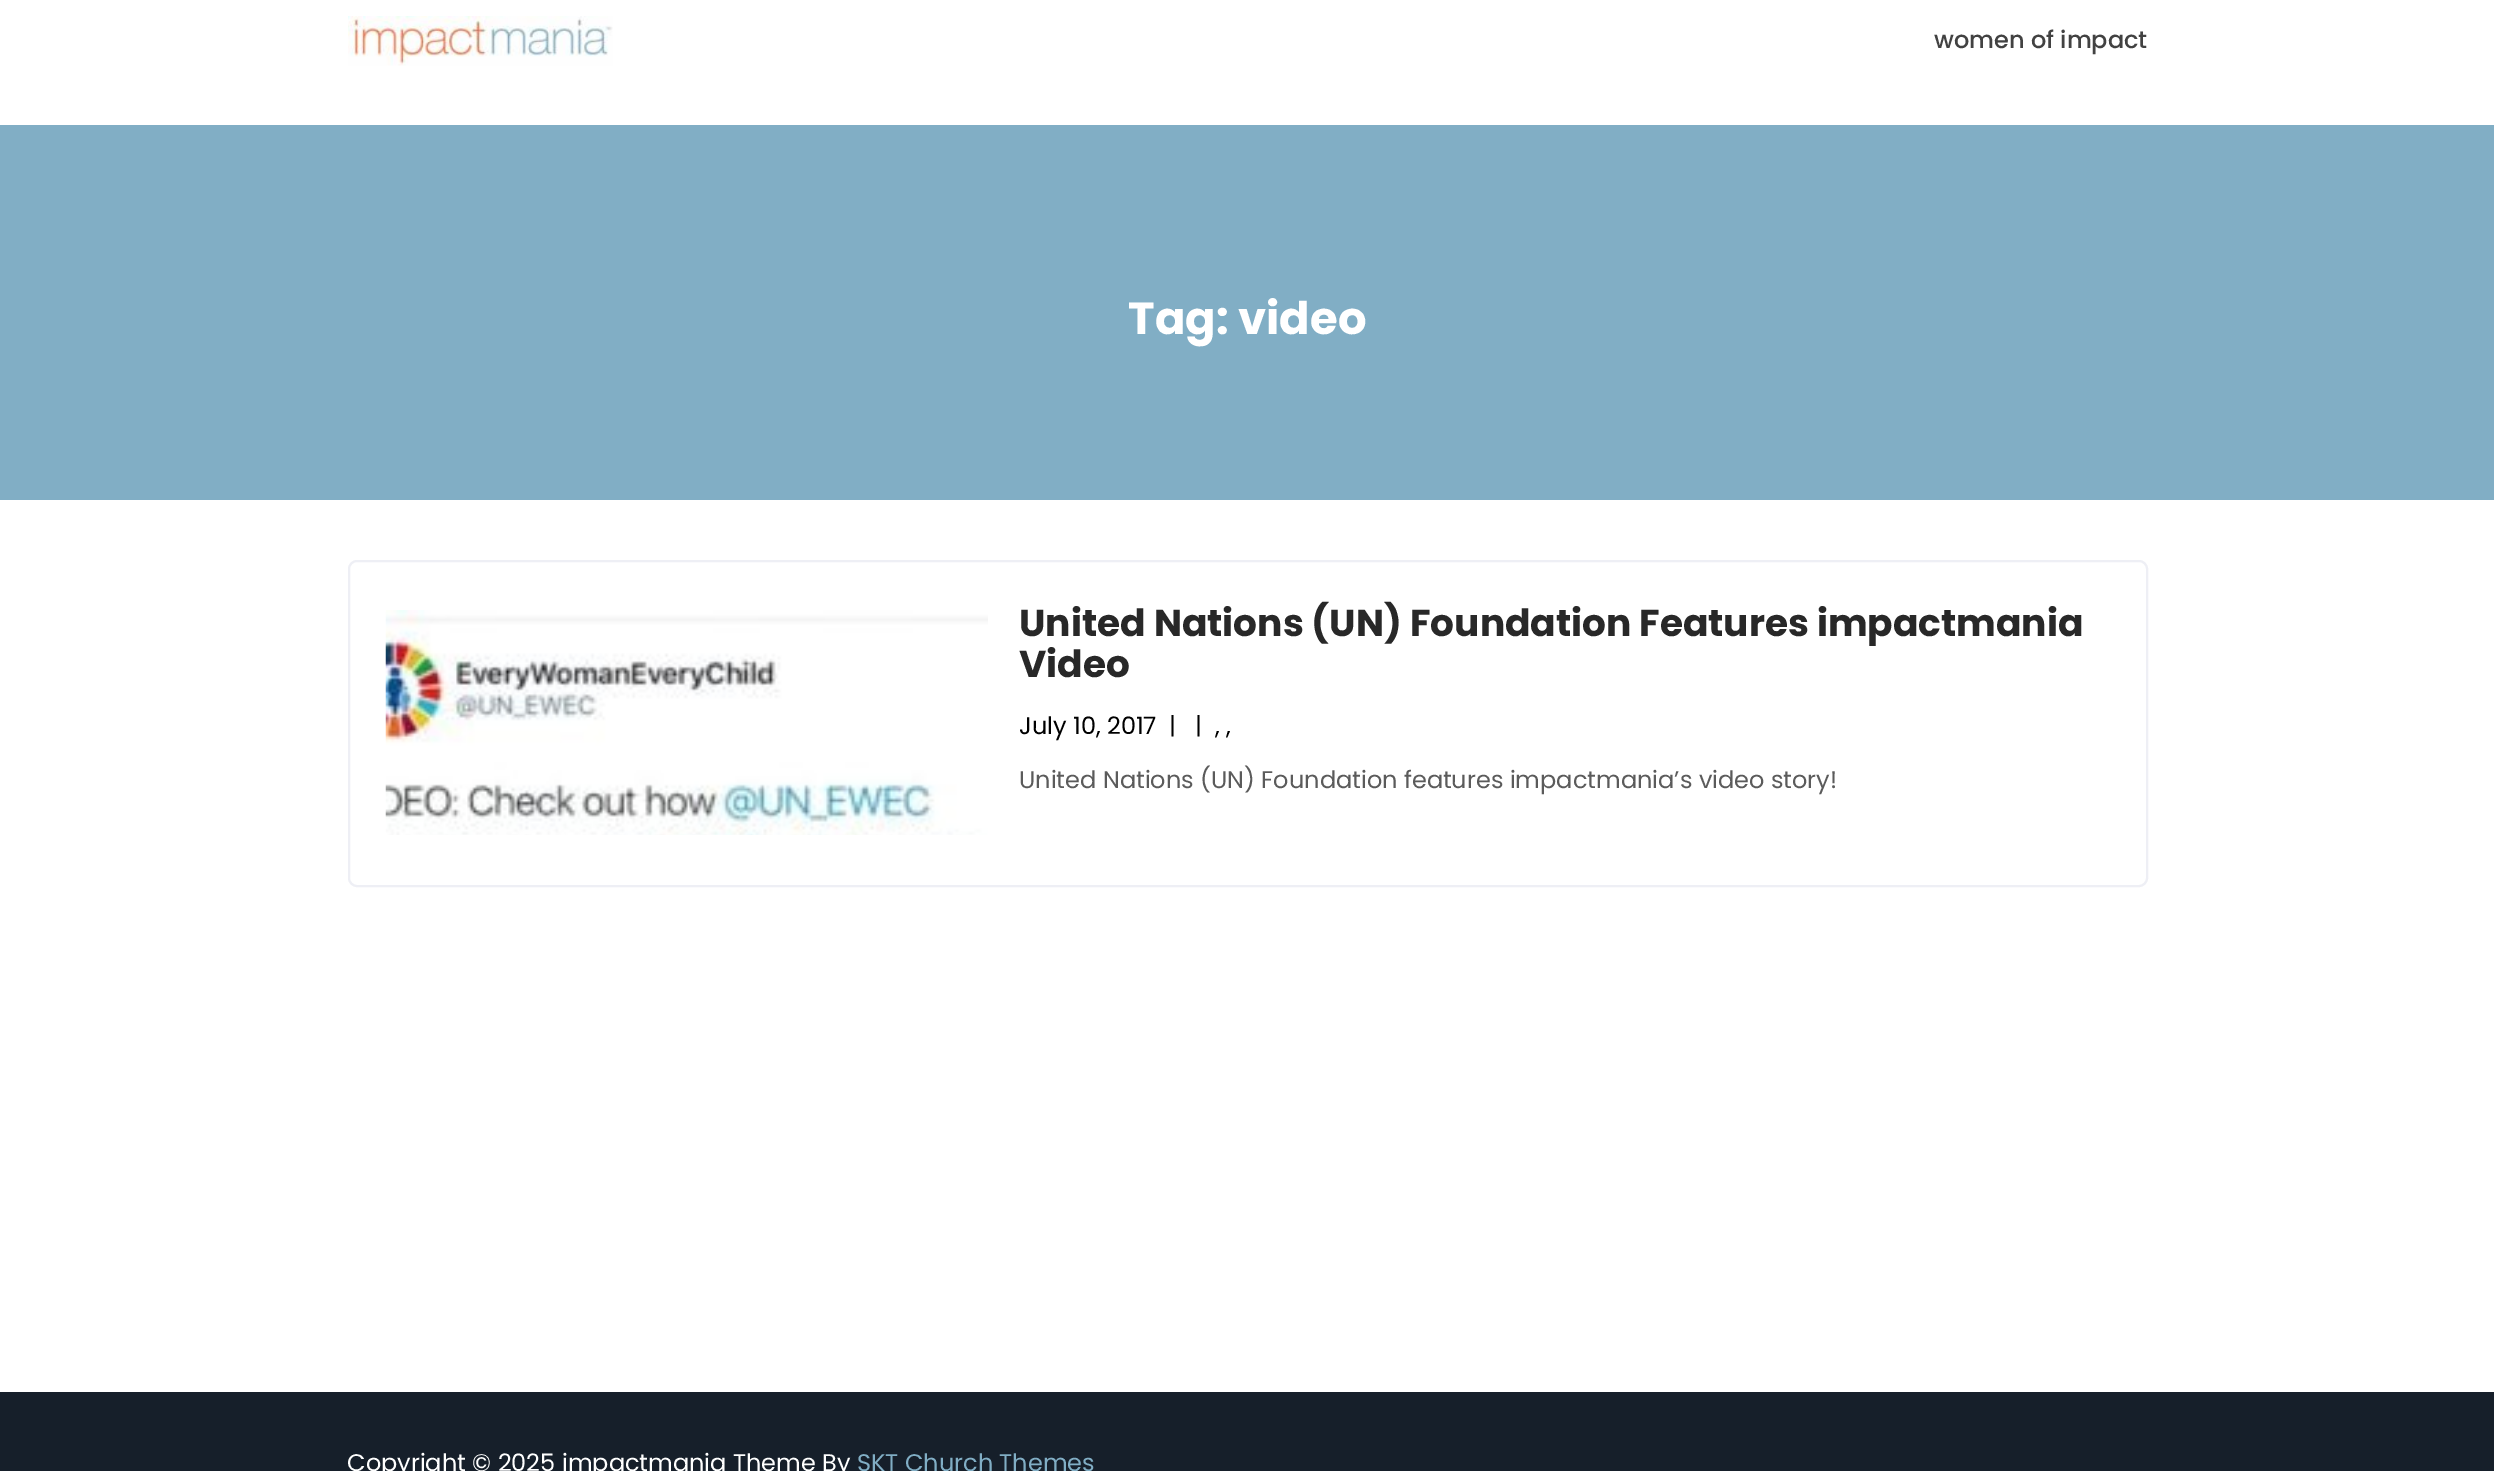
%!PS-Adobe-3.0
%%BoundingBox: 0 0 2494 1471
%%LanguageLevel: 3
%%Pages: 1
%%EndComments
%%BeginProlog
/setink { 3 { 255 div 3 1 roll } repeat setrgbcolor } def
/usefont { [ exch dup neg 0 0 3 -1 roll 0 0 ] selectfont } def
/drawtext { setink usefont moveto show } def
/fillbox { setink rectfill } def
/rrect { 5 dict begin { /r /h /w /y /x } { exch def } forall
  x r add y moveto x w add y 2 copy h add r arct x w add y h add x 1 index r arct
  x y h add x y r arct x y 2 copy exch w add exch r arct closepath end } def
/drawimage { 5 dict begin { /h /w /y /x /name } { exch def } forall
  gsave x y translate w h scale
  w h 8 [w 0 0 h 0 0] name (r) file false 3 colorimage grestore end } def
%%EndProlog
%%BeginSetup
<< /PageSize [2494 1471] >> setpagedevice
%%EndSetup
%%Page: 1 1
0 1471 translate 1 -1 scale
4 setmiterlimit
0 0 2494 1471 255 255 255 fillbox
(assets/img1.rgb) 348 16 265 50 drawimage
(women of impact) 1934 48 /Poppins-Medium 24 66 66 66 drawtext
0 125 2494 375 129 174 197 fillbox
(Tag: video) 1128 334 /Poppins-Bold 45 255 255 255 drawtext
238 239 245 setink
2 setlinewidth
349 561 1798 325 8 rrect stroke
(assets/img2.rgb) 385 610 603 225 drawimage
(United Nations \(UN\) Foundation Features impactmania) 1019 636 /Poppins-Bold 37.5 40 40 40 drawtext
(Video) 1019 677 /Poppins-Bold 37.5 40 40 40 drawtext
(July 10, 2017) 1019 734 /Poppins-Regular 24 0 0 0 drawtext
(|) 1169 734 /Poppins-Regular 24 0 0 0 drawtext
(|) 1195 734 /Poppins-Regular 24 0 0 0 drawtext
(, ,) 1215 734 /Poppins-Regular 24 0 0 0 drawtext
(United Nations \(UN\) Foundation features impactmania’s video story!) 1019 788 /Poppins-Regular 24 91 91 91 drawtext
0 1392 2494 79 22 31 42 fillbox
(Copyright © 2025 impactmania Theme By) 347 1471 /Poppins-Regular 24 255 255 255 drawtext
(SKT Church Themes) 857 1471 /Poppins-Regular 24 129 174 197 drawtext
showpage
%%EOF
